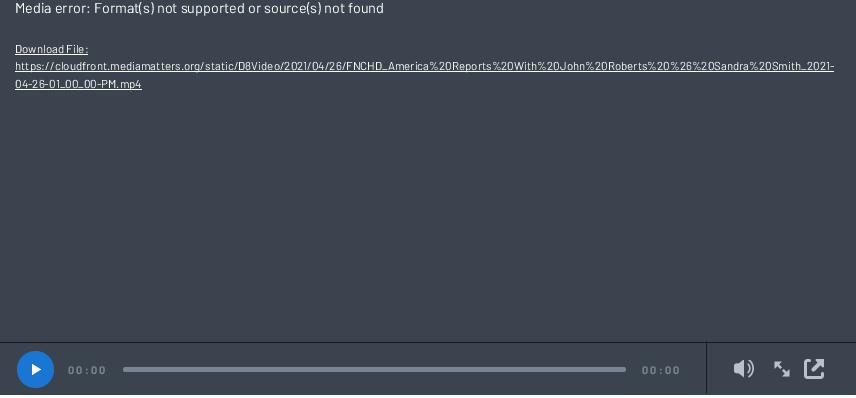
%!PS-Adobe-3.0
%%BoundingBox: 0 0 856 398
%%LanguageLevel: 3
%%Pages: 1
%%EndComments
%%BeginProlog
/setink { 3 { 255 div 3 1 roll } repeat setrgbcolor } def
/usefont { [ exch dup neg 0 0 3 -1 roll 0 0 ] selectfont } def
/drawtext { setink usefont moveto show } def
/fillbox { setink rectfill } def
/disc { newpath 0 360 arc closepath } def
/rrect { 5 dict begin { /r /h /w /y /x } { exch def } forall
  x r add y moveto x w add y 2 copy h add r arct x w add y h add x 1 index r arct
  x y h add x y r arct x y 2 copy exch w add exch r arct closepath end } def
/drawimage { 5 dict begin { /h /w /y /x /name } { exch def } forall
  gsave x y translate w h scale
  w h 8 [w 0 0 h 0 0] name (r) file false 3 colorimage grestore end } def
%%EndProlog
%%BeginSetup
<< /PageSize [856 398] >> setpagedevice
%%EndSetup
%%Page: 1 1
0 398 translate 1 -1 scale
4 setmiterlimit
0 0 856 398 255 255 255 fillbox
0 0 856 395 58 67 78 fillbox
(Media error: Format\(s\) not supported or source\(s\) not found) 15 13 /Barlow-Regular 14.4 255 255 255 drawtext
(Download File:) 15 53 /Barlow-Regular 11.52 255 255 255 drawtext
15 54 73 1 255 255 255 fillbox
15 71 819 1 255 255 255 fillbox
(https://cloudfront.mediamatters.org/static/D8Video/2021/04/26/FNCHD_America%20Reports%20With%20John%20Roberts%20%26%20Sandra%20Smith_2021-) 15 70 /Barlow-Regular 11.52 255 255 255 drawtext
15 89 127 1 255 255 255 fillbox
(04-26-01_00_00-PM.mp4) 15 88 /Barlow-Regular 11.52 255 255 255 drawtext
0 342 856 1 22 28 36 fillbox
25 118 210 setink
35.5 369.5 18.5 disc fill
255 255 255 setink
32 364 moveto 41 369.5 lineto 32 375 lineto closepath eofill
/Barlow-Bold 11 usefont
120 133 146 setink
68 374 moveto 2 0 (00:00) ashow
123 367 503 5 2.5 rrect fill
642 374 moveto 2 0 (00:00) ashow
706 341 1 52 22 28 36 fillbox
(assets/img1.rgb) 734 360 20 18 drawimage
(assets/img2.rgb) 774 361 16 16 drawimage
(assets/img3.rgb) 804 359 20 20 drawimage
showpage
%%EOF
